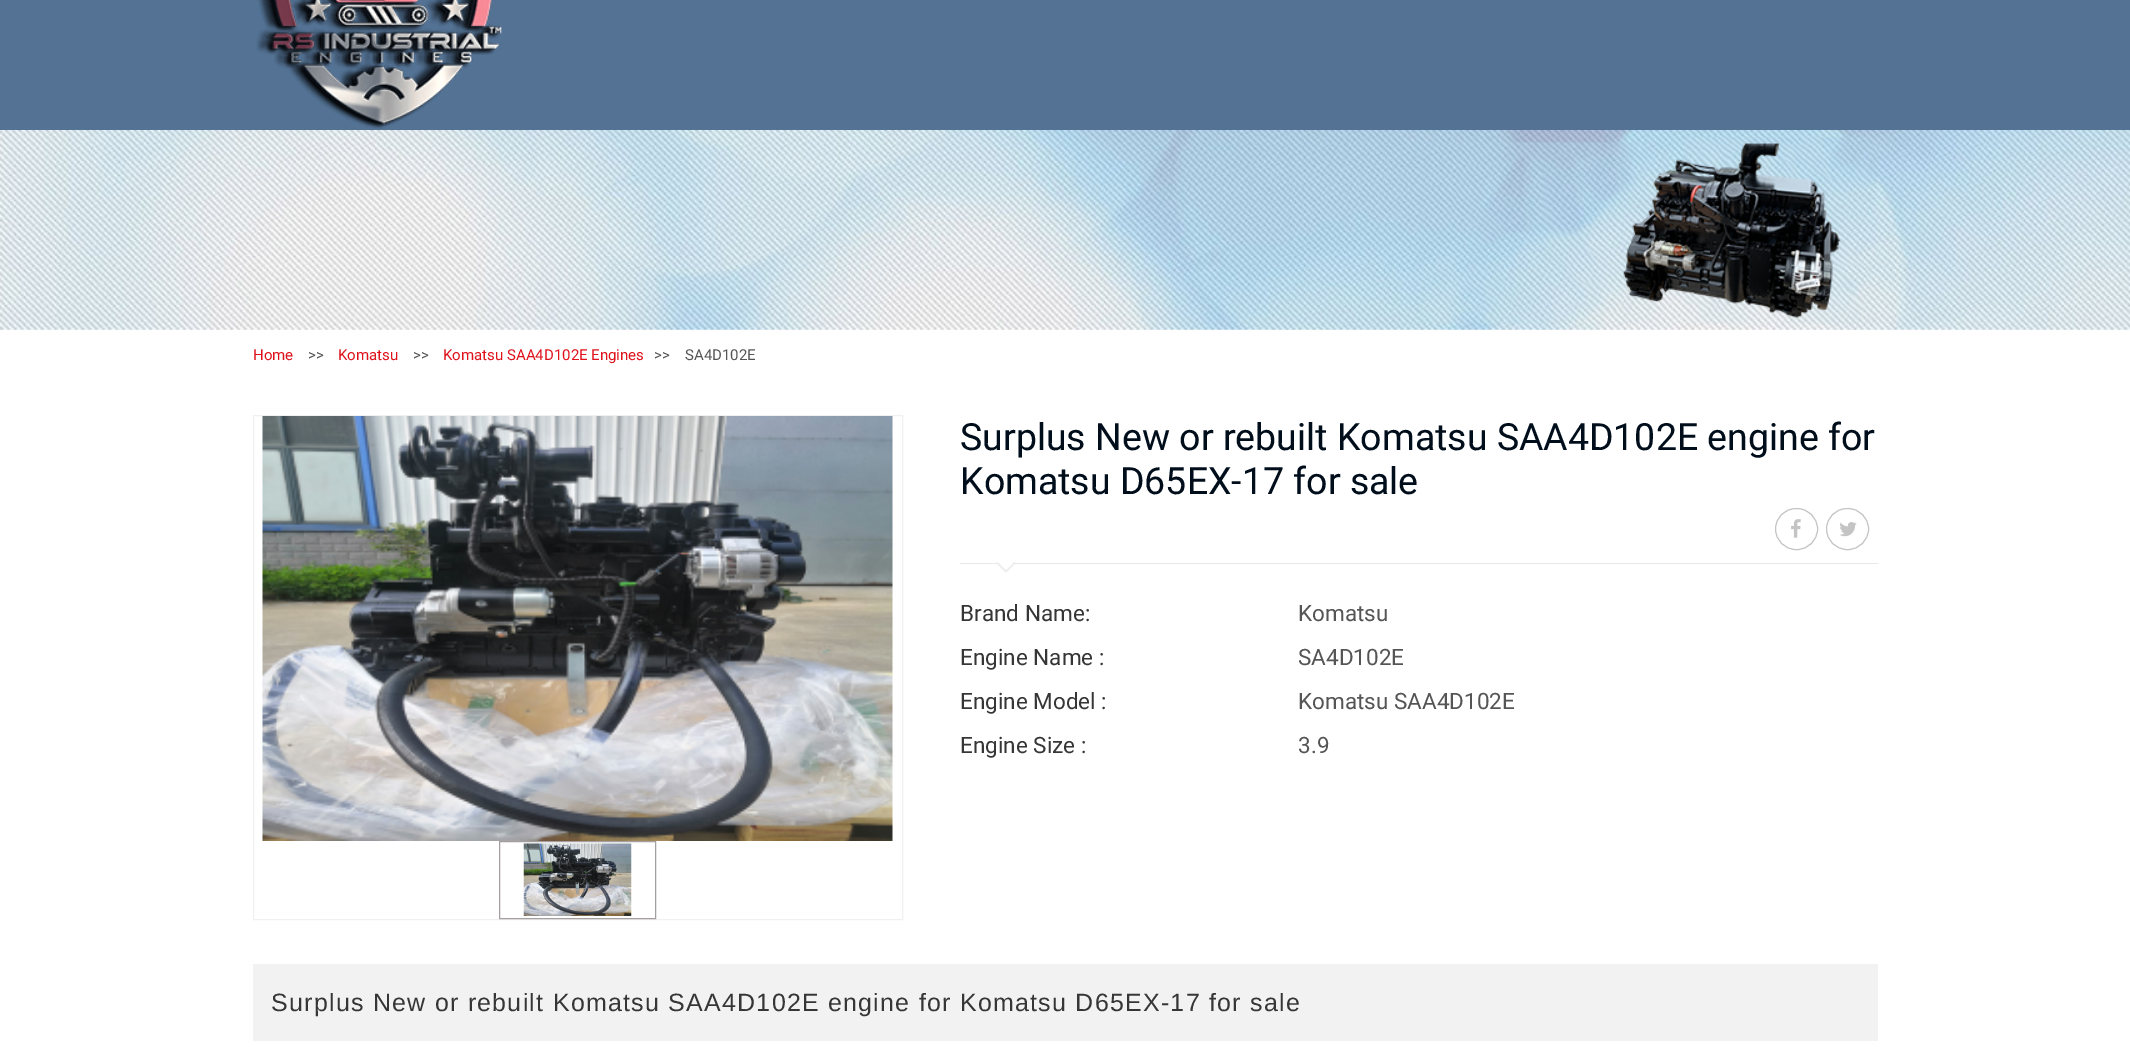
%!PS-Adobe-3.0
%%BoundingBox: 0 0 2130 1047
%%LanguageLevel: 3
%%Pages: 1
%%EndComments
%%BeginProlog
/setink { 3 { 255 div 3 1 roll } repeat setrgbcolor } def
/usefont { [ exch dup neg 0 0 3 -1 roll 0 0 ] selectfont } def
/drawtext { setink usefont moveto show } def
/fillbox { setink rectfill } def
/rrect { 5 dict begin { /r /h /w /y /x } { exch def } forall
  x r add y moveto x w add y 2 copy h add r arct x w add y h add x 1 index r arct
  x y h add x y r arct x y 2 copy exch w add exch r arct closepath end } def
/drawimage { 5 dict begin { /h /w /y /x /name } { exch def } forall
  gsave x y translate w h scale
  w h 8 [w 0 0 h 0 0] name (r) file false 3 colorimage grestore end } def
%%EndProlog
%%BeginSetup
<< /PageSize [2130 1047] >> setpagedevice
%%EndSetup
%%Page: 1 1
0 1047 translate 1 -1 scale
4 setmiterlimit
0 0 2130 1047 255 255 255 fillbox
0 0 2130 130 83 114 148 fillbox
(assets/img1.rgb) 255 0 247 129 drawimage
(assets/img2.rgb) 0 130 2130 200 drawimage
(Home) 253 360 /Roboto-Regular 15 223 17 27 drawtext
(>>) 308 360 /Roboto-Regular 15 85 85 85 drawtext
(Komatsu) 338 360 /Roboto-Regular 15 223 17 27 drawtext
(>>) 413 360 /Roboto-Regular 15 85 85 85 drawtext
(Komatsu SAA4D102E Engines) 443 360 /Roboto-Regular 15 223 17 27 drawtext
(>>) 654 360 /Roboto-Regular 15 85 85 85 drawtext
(SA4D102E) 685 360 /Roboto-Regular 15 85 85 85 drawtext
240 240 240 setink
253.5 415.5 649 504 rectstroke
(assets/img3.rgb) 262 416 631 425 drawimage
165 160 160 setink
499.5 841.5 156 77 rectstroke
(assets/img4.rgb) 523 843 109 73 drawimage
(Surplus New or rebuilt Komatsu SAA4D102E engine for) 960 450 /Roboto-Regular 37.5 0 13 27 drawtext
(Komatsu D65EX-17 for sale) 960 494 /Roboto-Regular 37.5 0 13 27 drawtext
960 563 918 1 232 232 232 fillbox
196 196 196 setink
1775.5 508.5 42 41 20.5 rrect stroke
(assets/img5.rgb) 1791 519 10 19 drawimage
1826.5 508.5 42 41 20.5 rrect stroke
(assets/img6.rgb) 1839 522 18 15 drawimage
(assets/img7.rgb) 996 562 19 11 drawimage
(Brand Name:) 960 621 /Roboto-Regular 22.5 54 54 54 drawtext
(Komatsu) 1298 621 /Roboto-Regular 22.5 85 85 85 drawtext
(Engine Name :) 960 665 /Roboto-Regular 22.5 54 54 54 drawtext
(SA4D102E) 1298 665 /Roboto-Regular 22.5 85 85 85 drawtext
(Engine Model :) 960 709 /Roboto-Regular 22.5 54 54 54 drawtext
(Komatsu SAA4D102E) 1298 709 /Roboto-Regular 22.5 85 85 85 drawtext
(Engine Size :) 960 753 /Roboto-Regular 22.5 54 54 54 drawtext
(3.9) 1298 753 /Roboto-Regular 22.5 85 85 85 drawtext
253 964 1625 77 242 242 242 fillbox
/LiberationSans-Regular 25 usefont
54 54 54 setink
271 1011 moveto 1.25 0 (Surplus New or rebuilt Komatsu SAA4D102E engine for Komatsu D65EX-17 for sale) ashow
showpage
%%EOF
